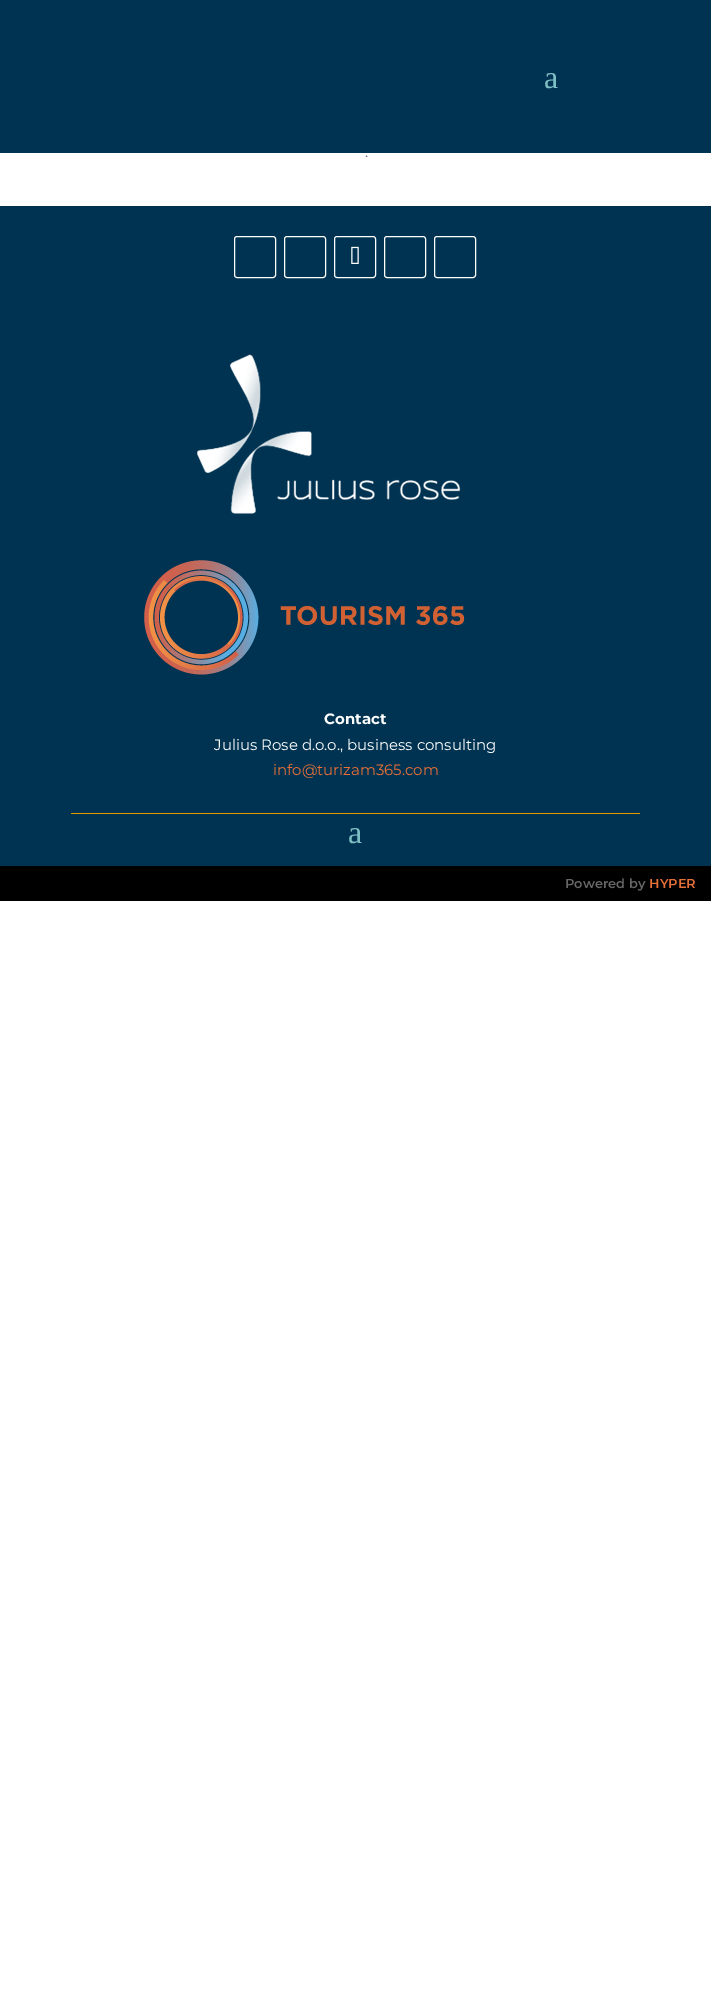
%!PS-Adobe-3.0
%%BoundingBox: 0 0 711 1994
%%LanguageLevel: 3
%%Pages: 1
%%EndComments
%%BeginProlog
/setink { 3 { 255 div 3 1 roll } repeat setrgbcolor } def
/usefont { [ exch dup neg 0 0 3 -1 roll 0 0 ] selectfont } def
/drawtext { setink usefont moveto show } def
/fillbox { setink rectfill } def
/rrect { 5 dict begin { /r /h /w /y /x } { exch def } forall
  x r add y moveto x w add y 2 copy h add r arct x w add y h add x 1 index r arct
  x y h add x y r arct x y 2 copy exch w add exch r arct closepath end } def
/drawimage { 5 dict begin { /h /w /y /x /name } { exch def } forall
  gsave x y translate w h scale
  w h 8 [w 0 0 h 0 0] name (r) file false 3 colorimage grestore end } def
%%EndProlog
%%BeginSetup
<< /PageSize [711 1994] >> setpagedevice
%%EndSetup
%%Page: 1 1
0 1994 translate 1 -1 scale
4 setmiterlimit
0 0 711 1994 255 255 255 fillbox
0 0 711 153 0 51 81 fillbox
(a) 544 88 /LiberationSerif-Regular 32 126 190 197 drawtext
(.) 365 157 /Montserrat-Regular 15 102 102 102 drawtext
0 206 711 660 0 51 81 fillbox
255 255 255 setink
234.5 236.5 41 41 2.5 rrect stroke
284.5 236.5 41 41 2.5 rrect stroke
334.5 236.5 41 41 2.5 rrect stroke
(assets/img1.rgb) 351 246 8 18 drawimage
384.5 236.5 41 41 2.5 rrect stroke
434.5 236.5 41 41 2.5 rrect stroke
(assets/img2.rgb) 197 354 264 160 drawimage
(assets/img3.rgb) 144 560 321 115 drawimage
(Contact) 324 724 /Montserrat-Bold 15 255 255 255 drawtext
(Julius Rose d.o.o., business consulting) 214 750 /Montserrat-Regular 15 255 255 255 drawtext
(info@turizam365.com) 273 775 /Montserrat-Regular 15 231 112 56 drawtext
71 813 569 1 224 153 0 fillbox
(a) 348 843 /LiberationSerif-Regular 32 126 190 197 drawtext
0 866 711 35 0 0 0 fillbox
(Powered by) 565 888 /Montserrat-SemiBold 13 102 102 102 drawtext
(HYPER) 649 888 /Montserrat-SemiBold 13 231 112 56 drawtext
showpage
%%EOF
